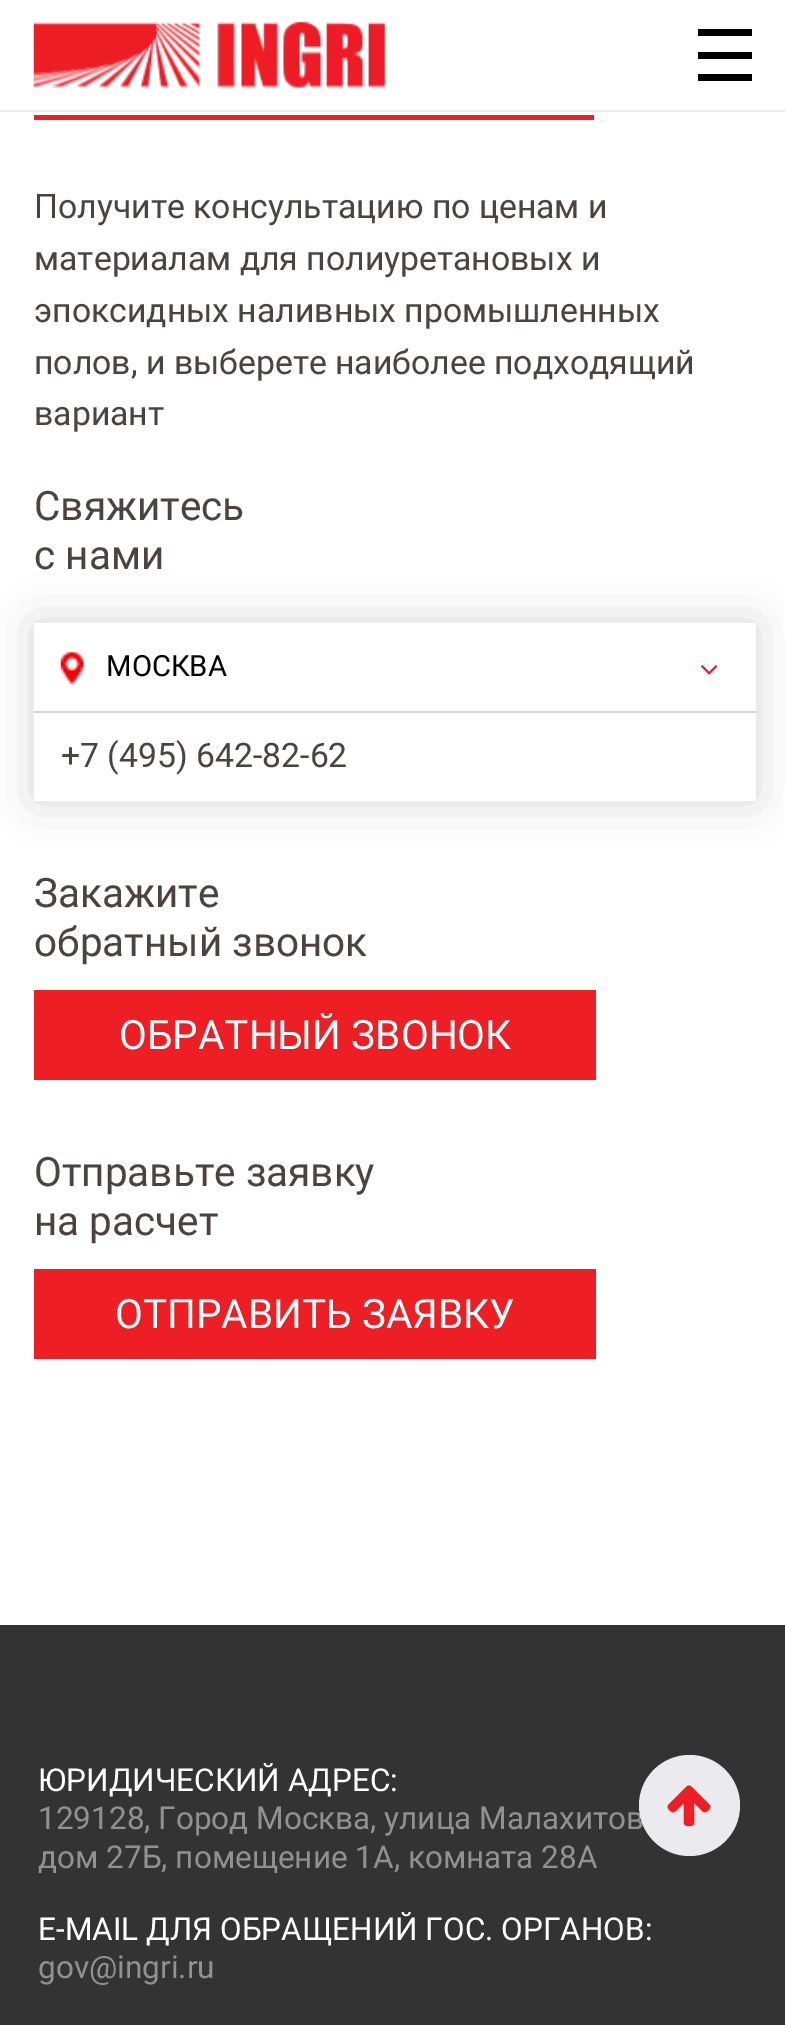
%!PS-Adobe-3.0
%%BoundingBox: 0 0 785 2025
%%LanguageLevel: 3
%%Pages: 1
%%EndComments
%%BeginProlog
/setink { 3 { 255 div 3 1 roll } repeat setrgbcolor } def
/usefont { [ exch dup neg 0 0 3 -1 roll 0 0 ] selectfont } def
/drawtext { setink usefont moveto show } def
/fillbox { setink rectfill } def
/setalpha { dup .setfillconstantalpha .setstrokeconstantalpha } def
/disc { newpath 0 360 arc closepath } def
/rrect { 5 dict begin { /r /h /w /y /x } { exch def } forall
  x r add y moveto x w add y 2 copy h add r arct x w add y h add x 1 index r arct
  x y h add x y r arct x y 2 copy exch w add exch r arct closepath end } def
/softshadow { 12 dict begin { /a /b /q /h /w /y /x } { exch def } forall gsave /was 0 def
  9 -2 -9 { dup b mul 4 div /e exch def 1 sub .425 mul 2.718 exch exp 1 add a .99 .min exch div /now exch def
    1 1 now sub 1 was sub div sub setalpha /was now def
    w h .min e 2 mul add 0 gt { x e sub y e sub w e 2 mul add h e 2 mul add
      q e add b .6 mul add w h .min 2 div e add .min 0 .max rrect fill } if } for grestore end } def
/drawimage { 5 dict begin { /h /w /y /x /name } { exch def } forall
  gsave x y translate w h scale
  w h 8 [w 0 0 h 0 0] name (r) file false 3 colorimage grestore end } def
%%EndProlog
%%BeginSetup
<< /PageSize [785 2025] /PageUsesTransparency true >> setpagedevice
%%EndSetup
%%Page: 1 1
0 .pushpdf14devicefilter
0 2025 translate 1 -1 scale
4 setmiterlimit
0 0 785 2025 255 255 255 fillbox
0 110 785 2 235 235 235 fillbox
(assets/img1.rgb) 33 22 352 66 drawimage
698 52 54 7 0 0 0 fillbox
698 29 54 7 0 0 0 fillbox
698 74 54 7 0 0 0 fillbox
34 115 560 5 237 31 36 fillbox
(Получите консультацию по ценам и) 34 218 /Roboto-Regular 33.75 76 66 66 drawtext
(материалам для полиуретановых и) 34 270 /Roboto-Regular 33.75 76 66 66 drawtext
(эпоксидных наливных промышленных) 34 322 /Roboto-Regular 33.75 76 66 66 drawtext
(полов, и выберете наиболее подходящий) 34 374 /Roboto-Regular 33.75 76 66 66 drawtext
(вариант) 34 425 /Roboto-Regular 33.75 76 66 66 drawtext
(Свяжитесь) 34 520 /Roboto-Regular 40.5 76 66 66 drawtext
0 0 0 setink
34 623 722 178 0 22.5 0.15 softshadow
(с нами) 34 569 /Roboto-Regular 40.5 76 66 66 drawtext
34 623 722 178 255 255 255 fillbox
(assets/img2.rgb) 60 651 24 33 drawimage
(МОСКВА) 106 676 /Roboto-Regular 29.25 0 0 0 drawtext
(assets/img3.rgb) 701 665 17 10 drawimage
34 711 722 2 215 215 215 fillbox
(+7 \(495\) 642-82-62) 61 767 /Roboto-Regular 33.75 76 66 66 drawtext
(Закажите) 34 907 /Roboto-Regular 40.5 76 66 66 drawtext
(обратный звонок) 34 956 /Roboto-Regular 40.5 76 66 66 drawtext
34 990 562 90 237 31 36 fillbox
(ОБРАТНЫЙ ЗВОНОК) 119 1049 /Roboto-Regular 40.5 255 255 255 drawtext
(Отправьте заявку) 34 1186 /Roboto-Regular 40.5 76 66 66 drawtext
(на расчет) 34 1235 /Roboto-Regular 40.5 76 66 66 drawtext
34 1269 562 90 237 31 36 fillbox
(ОТПРАВИТЬ ЗАЯВКУ) 115 1328 /Roboto-Regular 40.5 255 255 255 drawtext
0 1625 785 400 51 51 51 fillbox
(ЮРИДИЧЕСКИЙ АДРЕС:) 38 1791 /Roboto-Regular 31.5 255 255 255 drawtext
(129128, Город Москва, улица Малахитов) 38 1829 /Roboto-Regular 31.5 145 145 145 drawtext
(дом 27Б, помещение 1А, комната 28А) 38 1868 /Roboto-Regular 31.5 145 145 145 drawtext
(E-MAIL ДЛЯ ОБРАЩЕНИЙ ГОС. ОРГАНОВ:) 38 1940 /Roboto-Regular 31.5 255 255 255 drawtext
(gov@ingri.ru) 38 1978 /Roboto-Regular 31.5 145 145 145 drawtext
235 234 239 setink
689.5 1805.5 50.5 disc fill
(assets/img4.rgb) 667 1785 44 42 drawimage
.poppdf14devicefilter showpage
%%EOF
